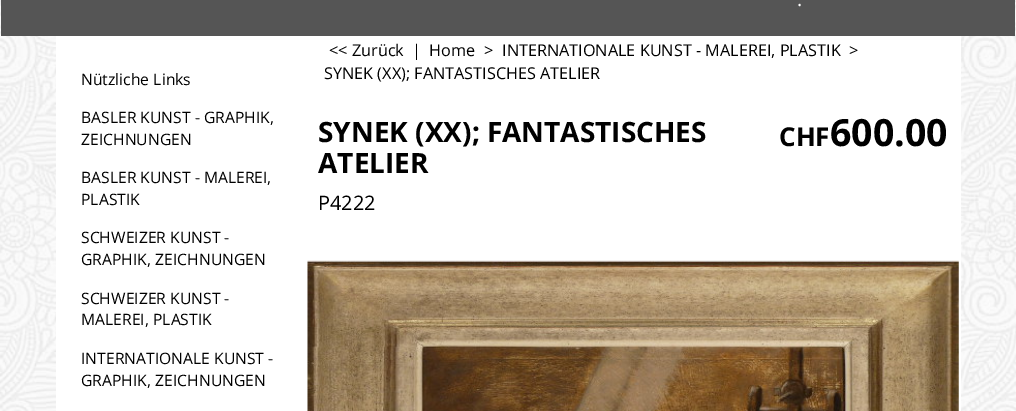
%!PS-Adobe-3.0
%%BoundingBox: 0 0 1016 411
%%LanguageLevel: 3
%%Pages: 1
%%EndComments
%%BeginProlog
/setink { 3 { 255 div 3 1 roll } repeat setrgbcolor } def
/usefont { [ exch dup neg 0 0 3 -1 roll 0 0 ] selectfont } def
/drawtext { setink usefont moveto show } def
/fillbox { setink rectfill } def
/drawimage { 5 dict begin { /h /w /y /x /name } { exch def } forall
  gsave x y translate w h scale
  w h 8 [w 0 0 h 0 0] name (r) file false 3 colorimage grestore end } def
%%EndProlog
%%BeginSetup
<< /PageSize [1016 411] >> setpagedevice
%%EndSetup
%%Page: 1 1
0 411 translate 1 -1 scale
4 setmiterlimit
0 0 1016 411 255 255 255 fillbox
(assets/img1.rgb) 0 0 1016 411 drawimage
1 0 1014 36 85 85 85 fillbox
(.) 797 6 /OpenSans-Regular 20 255 255 255 drawtext
56 36 905 375 255 255 255 fillbox
(Nützliche Links) 81 85 /OpenSans-Regular 15.7 0 0 0 drawtext
(BASLER KUNST - GRAPHIK,) 81 123 /OpenSans-Regular 15.7 0 0 0 drawtext
(ZEICHNUNGEN) 81 145 /OpenSans-Regular 15.7 0 0 0 drawtext
(BASLER KUNST - MALEREI,) 81 183 /OpenSans-Regular 15.7 0 0 0 drawtext
(PLASTIK) 81 205 /OpenSans-Regular 15.7 0 0 0 drawtext
(SCHWEIZER KUNST -) 81 243 /OpenSans-Regular 15.7 0 0 0 drawtext
(GRAPHIK, ZEICHNUNGEN) 81 265 /OpenSans-Regular 15.7 0 0 0 drawtext
(SCHWEIZER KUNST -) 81 304 /OpenSans-Regular 15.7 0 0 0 drawtext
(MALEREI, PLASTIK) 81 325 /OpenSans-Regular 15.7 0 0 0 drawtext
(INTERNATIONALE KUNST -) 81 364 /OpenSans-Regular 15.7 0 0 0 drawtext
(GRAPHIK, ZEICHNUNGEN) 81 386 /OpenSans-Regular 15.7 0 0 0 drawtext
(<< Zurück) 329 56 /OpenSans-Regular 16.25 0 0 0 drawtext
(|) 412 56 /OpenSans-Regular 16.25 0 0 0 drawtext
(Home) 429 56 /OpenSans-Regular 16.25 0 0 0 drawtext
(>) 484 56 /OpenSans-Regular 16.25 0 0 0 drawtext
(INTERNATIONALE KUNST - MALEREI, PLASTIK) 502 56 /OpenSans-Regular 16.25 0 0 0 drawtext
(>) 849 56 /OpenSans-Regular 16.25 0 0 0 drawtext
(SYNEK \(XX\); FANTASTISCHES ATELIER) 324 79 /OpenSans-Regular 16.25 0 0 0 drawtext
(SYNEK \(XX\); FANTASTISCHES) 318 142 /OpenSans-Bold 28 0 0 0 drawtext
(ATELIER) 318 173 /OpenSans-Bold 28 0 0 0 drawtext
(P4222) 318 210 /OpenSans-Regular 20 0 0 0 drawtext
(CHF) 779 146 /OpenSans-Bold 26 0 0 0 drawtext
(600.00) 830 146 /OpenSans-Bold 37.5 0 0 0 drawtext
(assets/img2.rgb) 307 260 652 151 drawimage
showpage
%%EOF
